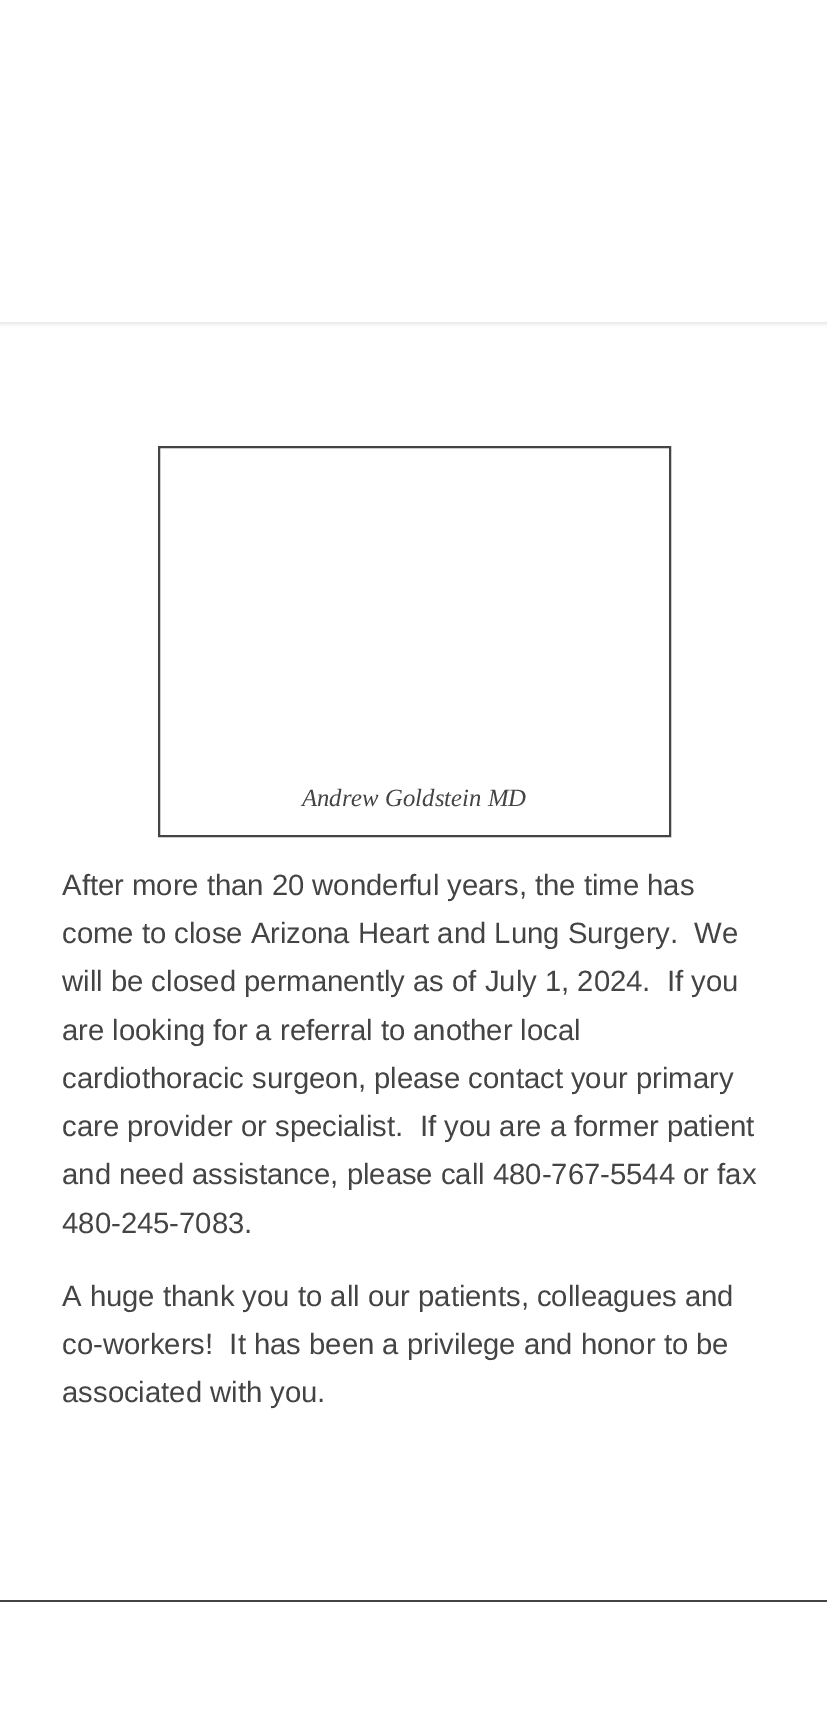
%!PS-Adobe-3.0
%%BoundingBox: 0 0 827 1723
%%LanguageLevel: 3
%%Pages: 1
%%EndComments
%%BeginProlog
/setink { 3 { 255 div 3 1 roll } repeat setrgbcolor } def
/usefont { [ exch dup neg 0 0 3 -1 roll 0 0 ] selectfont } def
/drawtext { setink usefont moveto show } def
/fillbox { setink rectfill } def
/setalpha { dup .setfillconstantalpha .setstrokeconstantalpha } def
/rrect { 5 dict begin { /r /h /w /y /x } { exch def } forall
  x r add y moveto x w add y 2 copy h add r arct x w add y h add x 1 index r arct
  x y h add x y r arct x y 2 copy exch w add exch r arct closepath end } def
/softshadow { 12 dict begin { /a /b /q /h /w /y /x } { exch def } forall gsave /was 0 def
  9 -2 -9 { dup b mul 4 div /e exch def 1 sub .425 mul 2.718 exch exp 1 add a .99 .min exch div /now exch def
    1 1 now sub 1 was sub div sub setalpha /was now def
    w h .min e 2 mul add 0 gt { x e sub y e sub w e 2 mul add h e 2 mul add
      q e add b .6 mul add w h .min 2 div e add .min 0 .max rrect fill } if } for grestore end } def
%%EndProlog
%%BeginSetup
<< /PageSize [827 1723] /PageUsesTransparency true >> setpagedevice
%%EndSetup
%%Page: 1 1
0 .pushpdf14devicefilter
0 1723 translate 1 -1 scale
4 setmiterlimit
0 0 827 1723 255 255 255 fillbox
gsave
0 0 moveto 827 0 lineto 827 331 lineto 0 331 lineto closepath 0 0 moveto 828 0 lineto 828 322 lineto 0 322 lineto closepath eoclip newpath
0 0 0 setink
-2 -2 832 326 0 2 0.1 softshadow
grestore
68 68 68 setink
2 setlinewidth
159 447 511 389 rectstroke
(Andrew Goldstein MD) 302 806 /LiberationSerif-Italic 24.75 68 68 68 drawtext
(After more than 20 wonderful years, the time has) 62 895 /LiberationSans-Regular 29.25 68 68 68 drawtext
(come to close Arizona Heart and Lung Surgery.  We) 62 943 /LiberationSans-Regular 29.25 68 68 68 drawtext
(will be closed permanently as of July 1, 2024.  If you) 62 991 /LiberationSans-Regular 29.25 68 68 68 drawtext
(are looking for a referral to another local) 62 1040 /LiberationSans-Regular 29.25 68 68 68 drawtext
(cardiothoracic surgeon, please contact your primary) 62 1088 /LiberationSans-Regular 29.25 68 68 68 drawtext
(care provider or specialist.  If you are a former patient) 62 1136 /LiberationSans-Regular 29.25 68 68 68 drawtext
(and need assistance, please call 480-767-5544 or fax) 62 1184 /LiberationSans-Regular 29.25 68 68 68 drawtext
(480-245-7083.) 62 1233 /LiberationSans-Regular 29.25 68 68 68 drawtext
(A huge thank you to all our patients, colleagues and) 62 1306 /LiberationSans-Regular 29.25 68 68 68 drawtext
(co-workers!  It has been a privilege and honor to be) 62 1354 /LiberationSans-Regular 29.25 68 68 68 drawtext
(associated with you.) 62 1402 /LiberationSans-Regular 29.25 68 68 68 drawtext
0 1600 827 2 68 68 68 fillbox
.poppdf14devicefilter showpage
%%EOF
